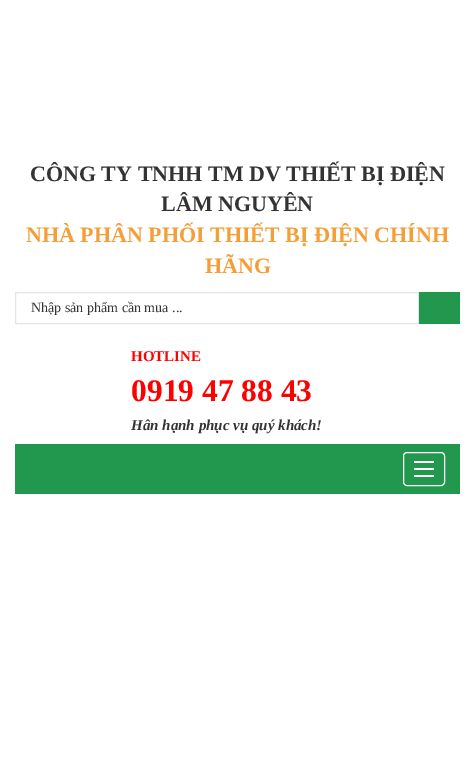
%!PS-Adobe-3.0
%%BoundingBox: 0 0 475 779
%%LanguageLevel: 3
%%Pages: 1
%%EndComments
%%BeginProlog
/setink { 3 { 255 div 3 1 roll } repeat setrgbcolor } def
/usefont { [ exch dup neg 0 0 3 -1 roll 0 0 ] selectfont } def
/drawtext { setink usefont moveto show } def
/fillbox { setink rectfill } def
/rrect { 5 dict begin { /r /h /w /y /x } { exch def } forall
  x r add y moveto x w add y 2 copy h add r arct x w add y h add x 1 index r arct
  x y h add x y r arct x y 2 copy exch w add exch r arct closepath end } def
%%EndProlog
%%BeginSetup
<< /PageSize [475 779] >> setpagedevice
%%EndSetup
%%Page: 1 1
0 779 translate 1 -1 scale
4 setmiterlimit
0 0 475 779 255 255 255 fillbox
(CÔNG TY TNHH TM DV THIẾT BỊ ĐIỆN) 30 181 /LiberationSerif-Bold 22 51 51 51 drawtext
(LÂM NGUYÊN) 161 211 /LiberationSerif-Bold 22 51 51 51 drawtext
(NHÀ PHÂN PHỐI THIẾT BỊ ĐIỆN CHÍNH) 26 242 /LiberationSerif-Bold 22 245 158 55 drawtext
(HÃNG) 205 273 /LiberationSerif-Bold 22 245 158 55 drawtext
225 229 235 setink
15.5 292.5 403 31 rectstroke
(Nhập sản phẩm cần mua ...) 31 312 /LiberationSerif-Regular 14 51 51 51 drawtext
419 292 41 32 34 152 78 fillbox
(HOTLINE) 131 361 /LiberationSerif-Bold 15 255 0 0 drawtext
(0919 47 88 43) 131 401 /LiberationSerif-Bold 31.5 255 0 0 drawtext
(Hân hạnh phục vụ quý khách!) 131 430 /LiberationSerif-BoldItalic 15 51 51 51 drawtext
15 444 445 50 34 152 78 fillbox
255 255 255 setink
403.5 452.5 41 33 3.5 rrect stroke
414 461 20 2 255 255 255 fillbox
414 468 20 2 255 255 255 fillbox
414 475 20 2 255 255 255 fillbox
showpage
%%EOF
